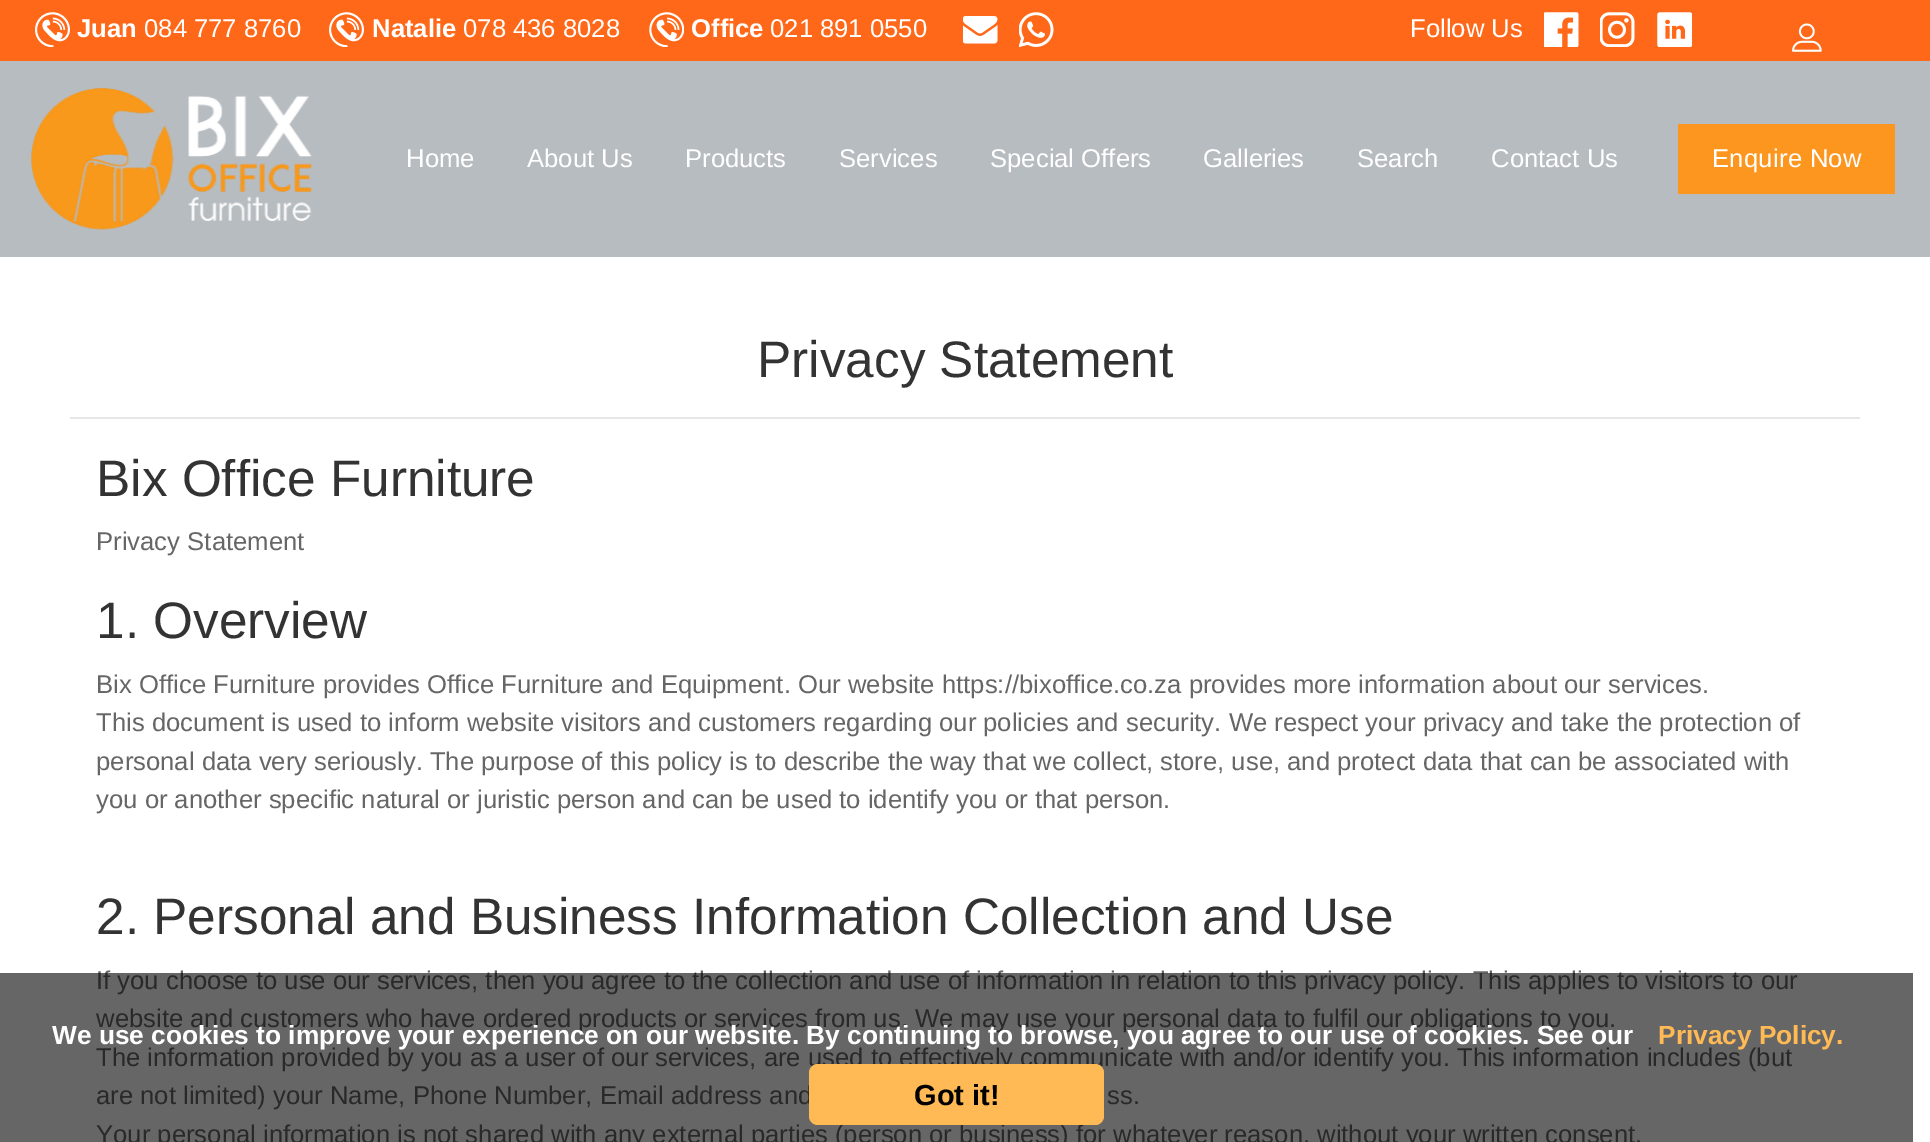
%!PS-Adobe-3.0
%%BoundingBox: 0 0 1930 1142
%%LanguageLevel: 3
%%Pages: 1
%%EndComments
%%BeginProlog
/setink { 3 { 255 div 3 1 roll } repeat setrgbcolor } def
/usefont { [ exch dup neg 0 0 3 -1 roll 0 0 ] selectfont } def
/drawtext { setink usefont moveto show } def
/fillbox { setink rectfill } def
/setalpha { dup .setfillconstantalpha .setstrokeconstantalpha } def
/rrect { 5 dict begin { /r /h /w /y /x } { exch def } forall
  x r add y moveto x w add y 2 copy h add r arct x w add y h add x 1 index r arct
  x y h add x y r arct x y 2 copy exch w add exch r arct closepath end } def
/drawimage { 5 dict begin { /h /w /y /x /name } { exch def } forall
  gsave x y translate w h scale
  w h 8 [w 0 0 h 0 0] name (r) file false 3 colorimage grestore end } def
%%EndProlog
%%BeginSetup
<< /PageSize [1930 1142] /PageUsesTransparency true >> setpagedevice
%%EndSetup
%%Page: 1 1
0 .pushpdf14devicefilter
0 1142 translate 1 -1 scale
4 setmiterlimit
0 0 1930 1142 255 255 255 fillbox
0 0 1930 61 255 104 25 fillbox
(assets/img1.rgb) 35 12 35 35 drawimage
(Juan) 77 37 /LiberationSans-Bold 25.67 255 255 255 drawtext
(084 777 8760) 144 37 /LiberationSans-Regular 25.67 255 255 255 drawtext
(assets/img1.rgb) 329 12 35 35 drawimage
(Natalie) 372 37 /LiberationSans-Bold 25.67 255 255 255 drawtext
(078 436 8028) 463 37 /LiberationSans-Regular 25.67 255 255 255 drawtext
(assets/img2.rgb) 649 12 35 35 drawimage
(Office) 691 37 /LiberationSans-Bold 25.67 255 255 255 drawtext
(021 891 0550) 770 37 /LiberationSans-Regular 25.67 255 255 255 drawtext
(assets/img3.rgb) 963 16 35 28 drawimage
(assets/img4.rgb) 1019 12 35 35 drawimage
(Follow Us) 1410 37 /LiberationSans-Regular 25.67 255 255 255 drawtext
(assets/img5.rgb) 1544 12 35 35 drawimage
(assets/img6.rgb) 1600 12 35 35 drawimage
(assets/img7.rgb) 1657 12 35 35 drawimage
(assets/img8.rgb) 1792 23 30 29 drawimage
0 61 1930 196 183 188 193 fillbox
(assets/img9.rgb) 31 88 281 142 drawimage
(Home) 406 167 /LiberationSans-Regular 25.67 255 255 255 drawtext
(About Us) 527 167 /LiberationSans-Regular 25.67 255 255 255 drawtext
(Products) 685 167 /LiberationSans-Regular 25.67 255 255 255 drawtext
(Services) 839 167 /LiberationSans-Regular 25.67 255 255 255 drawtext
(Special Offers) 990 167 /LiberationSans-Regular 25.67 255 255 255 drawtext
(Galleries) 1203 167 /LiberationSans-Regular 25.67 255 255 255 drawtext
(Search) 1357 167 /LiberationSans-Regular 25.67 255 255 255 drawtext
(Contact Us) 1491 167 /LiberationSans-Regular 25.67 255 255 255 drawtext
1678 124 217 70 253 150 31 fillbox
255 255 255 setink
1712 167 moveto 0.25 0 (Enquire Now) ashow
(Privacy Statement) 757 377 /LiberationSans-Regular 51.3 51 51 51 drawtext
70 417 1790 2 230 230 230 fillbox
(Bix Office Furniture) 96 496 /LiberationSans-Regular 51.3 51 51 51 drawtext
(Privacy Statement) 96 550 /LiberationSans-Regular 25.67 102 102 102 drawtext
(1. Overview) 96 638 /LiberationSans-Regular 51.3 51 51 51 drawtext
(Bix Office Furniture provides Office Furniture and Equipment. Our website https://bixoffice.co.za provides more information about our services.) 96 693 /LiberationSans-Regular 25.67 102 102 102 drawtext
(This document is used to inform website visitors and customers regarding our policies and security. We respect your privacy and take the protection of) 96 731 /LiberationSans-Regular 25.67 102 102 102 drawtext
(personal data very seriously. The purpose of this policy is to describe the way that we collect, store, use, and protect data that can be associated with) 96 770 /LiberationSans-Regular 25.67 102 102 102 drawtext
(you or another specific natural or juristic person and can be used to identify you or that person.) 96 808 /LiberationSans-Regular 25.67 102 102 102 drawtext
(2. Personal and Business Information Collection and Use) 96 934 /LiberationSans-Regular 51.3 51 51 51 drawtext
(If you choose to use our services, then you agree to the collection and use of information in relation to this privacy policy. This applies to visitors to our) 96 989 /LiberationSans-Regular 25.67 102 102 102 drawtext
(website and customers who have ordered products or services from us. We may use your personal data to fulfil our obligations to you.) 96 1027 /LiberationSans-Regular 25.67 102 102 102 drawtext
(The information provided by you as a user of our services, are used to effectively communicate with and/or identify you. This information includes \(but) 96 1066 /LiberationSans-Regular 25.67 102 102 102 drawtext
(are not limited\) your Name, Phone Number, Email address and) 96 1104 /LiberationSans-Regular 25.67 102 102 102 drawtext
(ss.) 1107 1104 /LiberationSans-Regular 25.67 102 102 102 drawtext
(Your personal information is not shared with any external parties \(person or business\) for whatever reason, without your written consent.) 96 1143 /LiberationSans-Regular 25.67 102 102 102 drawtext
0.6 setalpha
0 973 1913 169 0 0 0 fillbox
1 setalpha
(We use cookies to improve your experience on our website. By continuing to browse, you agree to our use of cookies. See our) 52 1044 /LiberationSans-Bold 26.25 255 255 255 drawtext
(Privacy Policy.) 1658 1044 /LiberationSans-Bold 26.25 255 186 85 drawtext
809 1064 295 61 9 rrect fill
(Got it!) 914 1105 /LiberationSans-Bold 29 0 0 0 drawtext
.poppdf14devicefilter showpage
%%EOF
